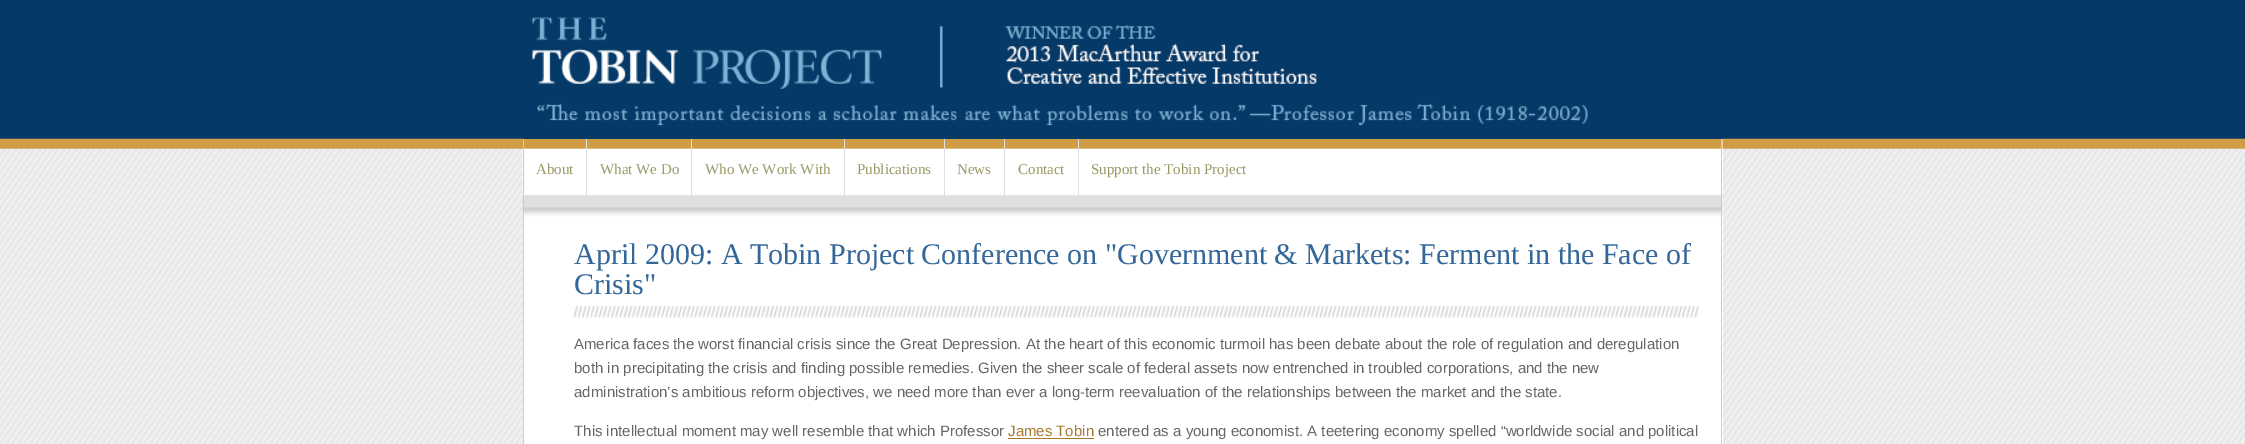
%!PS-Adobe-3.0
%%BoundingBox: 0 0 2245 444
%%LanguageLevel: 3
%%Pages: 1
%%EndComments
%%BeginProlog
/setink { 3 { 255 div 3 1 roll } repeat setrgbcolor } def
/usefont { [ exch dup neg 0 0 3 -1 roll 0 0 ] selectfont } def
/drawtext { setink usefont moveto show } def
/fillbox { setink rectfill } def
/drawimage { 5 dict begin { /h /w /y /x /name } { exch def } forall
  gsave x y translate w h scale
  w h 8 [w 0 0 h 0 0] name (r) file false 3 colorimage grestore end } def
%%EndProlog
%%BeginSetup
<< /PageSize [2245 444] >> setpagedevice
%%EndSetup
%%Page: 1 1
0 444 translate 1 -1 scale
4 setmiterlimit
0 0 2245 444 255 255 255 fillbox
(assets/img1.rgb) 0 0 2245 444 drawimage
524 139 1199 305 255 255 255 fillbox
(assets/img4.rgb) 522 138 1201 80 drawimage
523 138 1200 1 5 57 103 fillbox
(assets/img2.rgb) 532 17 1056 109 drawimage
(assets/img3.rgb) 1007 28 306 56 drawimage
1721 139 1 79 204 204 204 fillbox
523 139 1 79 204 204 204 fillbox
586 139 1 57 223 223 223 fillbox
(About) 536 174 /LiberationSerif-Regular 15 153 153 102 drawtext
691 139 1 57 223 223 223 fillbox
(What We Do) 600 174 /LiberationSerif-Regular 15 153 153 102 drawtext
844 139 1 57 223 223 223 fillbox
(Who We Work With) 705 174 /LiberationSerif-Regular 15 153 153 102 drawtext
944 139 1 57 223 223 223 fillbox
(Publications) 857 174 /LiberationSerif-Regular 15 153 153 102 drawtext
1004 139 1 57 223 223 223 fillbox
(News) 957 174 /LiberationSerif-Regular 15 153 153 102 drawtext
1078 139 1 57 223 223 223 fillbox
(Contact) 1018 174 /LiberationSerif-Regular 15 153 153 102 drawtext
(Support the Tobin Project) 1091 174 /LiberationSerif-Regular 15 153 153 102 drawtext
1721 218 1 226 204 204 204 fillbox
523 218 1 226 204 204 204 fillbox
(assets/img5.rgb) 573 306 1126 12 drawimage
(April 2009: A Tobin Project Conference on "Government & Markets: Ferment in the Face of) 574 264 /LiberationSerif-Regular 30 51 102 153 drawtext
(Crisis") 574 294 /LiberationSerif-Regular 30 51 102 153 drawtext
(America faces the worst financial crisis since the Great Depression. At the heart of this economic turmoil has been debate about the role of regulation and deregulation) 574 349 /LiberationSans-Regular 15 102 102 102 drawtext
(both in precipitating the crisis and finding possible remedies. Given the sheer scale of federal assets now entrenched in troubled corporations, and the new) 574 373 /LiberationSans-Regular 15 102 102 102 drawtext
(administration’s ambitious reform objectives, we need more than ever a long-term reevaluation of the relationships between the market and the state.) 574 397 /LiberationSans-Regular 15 102 102 102 drawtext
(This intellectual moment may well resemble that which Professor) 574 436 /LiberationSans-Regular 15 102 102 102 drawtext
(James Tobin) 1008 436 /LiberationSans-Regular 15 168 121 47 drawtext
1008 438 86 1 168 121 47 fillbox
(entered as a young economist. A teetering economy spelled “worldwide social and political) 1098 436 /LiberationSans-Regular 15 102 102 102 drawtext
showpage
%%EOF
